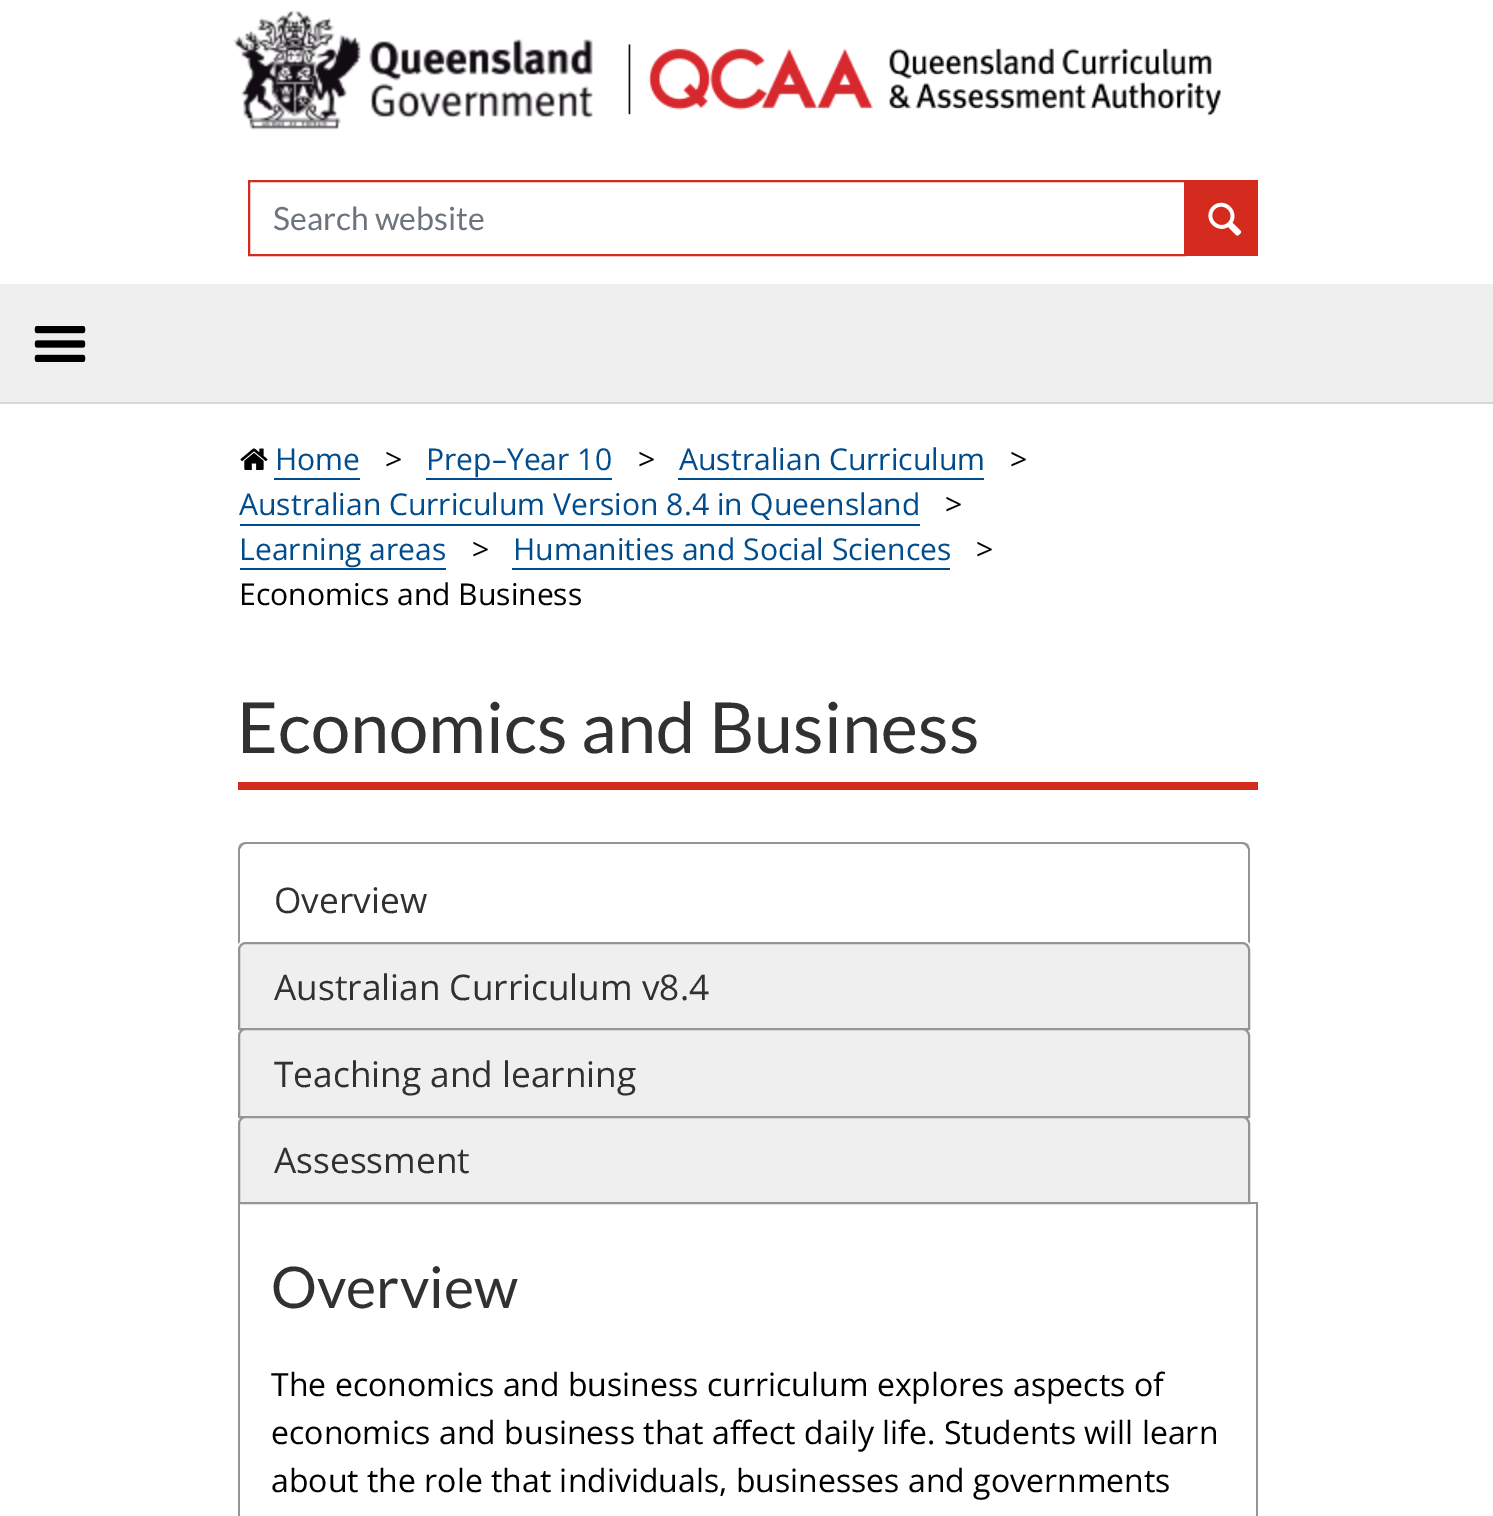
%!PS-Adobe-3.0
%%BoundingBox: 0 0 1493 1516
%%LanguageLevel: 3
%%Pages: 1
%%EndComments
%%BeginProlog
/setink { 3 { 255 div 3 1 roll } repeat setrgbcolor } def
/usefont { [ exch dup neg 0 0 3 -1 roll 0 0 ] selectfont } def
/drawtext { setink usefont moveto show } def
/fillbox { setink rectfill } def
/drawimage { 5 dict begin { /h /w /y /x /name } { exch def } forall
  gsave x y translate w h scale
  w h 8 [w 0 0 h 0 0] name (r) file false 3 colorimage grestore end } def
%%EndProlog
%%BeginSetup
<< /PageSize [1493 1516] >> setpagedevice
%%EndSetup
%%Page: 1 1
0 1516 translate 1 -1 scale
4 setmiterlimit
0 0 1493 1516 255 255 255 fillbox
(assets/img1.rgb) 233 10 360 120 drawimage
(assets/img2.rgb) 628 44 593 72 drawimage
213 43 30 setink
2 setlinewidth
249 181 936 74 rectstroke
(Search website) 273 230 /Lato-Regular 32 108 117 125 drawtext
1186 180 72 76 213 43 30 fillbox
(assets/img3.rgb) 1208 202 34 34 drawimage
0 284 1493 118 239 239 239 fillbox
0 402 1493 2 215 215 215 fillbox
(assets/img4.rgb) 34 326 52 36 drawimage
(assets/img5.rgb) 240 448 28 22 drawimage
(Home) 275 470 /OpenSans-Regular 30.1 1 76 140 drawtext
274 478 86 2 1 76 140 fillbox
(>) 385 470 /OpenSans-Regular 30.1 0 0 0 drawtext
(Prep–Year 10) 426 470 /OpenSans-Regular 30.1 1 76 140 drawtext
426 478 186 2 1 76 140 fillbox
(>) 638 470 /OpenSans-Regular 30.1 0 0 0 drawtext
(Australian Curriculum) 679 470 /OpenSans-Regular 30.1 1 76 140 drawtext
678 478 306 2 1 76 140 fillbox
(>) 1010 470 /OpenSans-Regular 30.1 0 0 0 drawtext
(Australian Curriculum Version 8.4 in Queensland) 239 515 /OpenSans-Regular 30.1 1 76 140 drawtext
240 524 680 2 1 76 140 fillbox
(>) 945 515 /OpenSans-Regular 30.1 0 0 0 drawtext
(Learning areas) 239 560 /OpenSans-Regular 30.1 1 76 140 drawtext
240 568 206 2 1 76 140 fillbox
(>) 472 560 /OpenSans-Regular 30.1 0 0 0 drawtext
(Humanities and Social Sciences) 513 560 /OpenSans-Regular 30.1 1 76 140 drawtext
512 568 438 2 1 76 140 fillbox
(>) 976 560 /OpenSans-Regular 30.1 0 0 0 drawtext
(Economics and Business) 239 605 /OpenSans-Regular 30.1 0 0 0 drawtext
(Economics and Business) 237 753 /Lato-Regular 70.4 49 49 49 drawtext
238 782 1020 8 213 43 30 fillbox
1250 1202 8 2 147 149 152 fillbox
246 842 moveto 244 842 242 843 240 844 curveto 242 846 lineto 243 845 244 844 246 844 curveto 1242 844 lineto 1244 844 1245 845 1246 846 curveto 1248 844 lineto 1246 843 1244 842 1242 842 curveto closepath fill
1250 944 moveto 1250 849 lineto 1248 844 lineto 1246 846 lineto 1248 849 lineto 1248 942 lineto closepath fill
255 255 255 setink
1250 944 moveto 1248 942 lineto 240 942 lineto 238 944 lineto closepath fill
147 149 152 setink
238 944 moveto 240 942 lineto 240 849 lineto 242 846 lineto 240 844 lineto 239 846 238 848 238 850 curveto closepath fill
(Overview) 274 913 /OpenSans-Regular 35.25 49 49 49 drawtext
239 239 239 setink
246 943 moveto 1242 943 lineto 1246 943 1249 946 1249 950 curveto 1249 1029 lineto 239 1029 lineto 239 950 lineto 239 946 242 943 246 943 curveto closepath gsave fill grestore
147 149 152 setink
stroke
(Australian Curriculum v8.4) 274 1000 /OpenSans-Regular 35.25 49 49 49 drawtext
239 239 239 setink
246 1029 moveto 1242 1029 lineto 1246 1029 1249 1032 1249 1036 curveto 1249 1117 lineto 239 1117 lineto 239 1036 lineto 239 1032 242 1029 246 1029 curveto closepath gsave fill grestore
147 149 152 setink
stroke
(Teaching and learning) 274 1087 /OpenSans-Regular 35.25 49 49 49 drawtext
239 239 239 setink
246 1117 moveto 1242 1117 lineto 1246 1117 1249 1120 1249 1124 curveto 1249 1203 lineto 239 1203 lineto 239 1124 lineto 239 1120 242 1117 246 1117 curveto closepath gsave fill grestore
147 149 152 setink
stroke
(Assessment) 274 1173 /OpenSans-Regular 35.25 49 49 49 drawtext
1256 1204 2 312 147 149 152 fillbox
238 1204 2 312 147 149 152 fillbox
(Overview) 271 1308 /Lato-Regular 57.5 49 49 49 drawtext
(The economics and business curriculum explores aspects of) 271 1396 /OpenSans-Regular 32 0 0 0 drawtext
(economics and business that affect daily life. Students will learn) 271 1444 /OpenSans-Regular 32 0 0 0 drawtext
(about the role that individuals, businesses and governments) 271 1492 /OpenSans-Regular 32 0 0 0 drawtext
showpage
%%EOF
